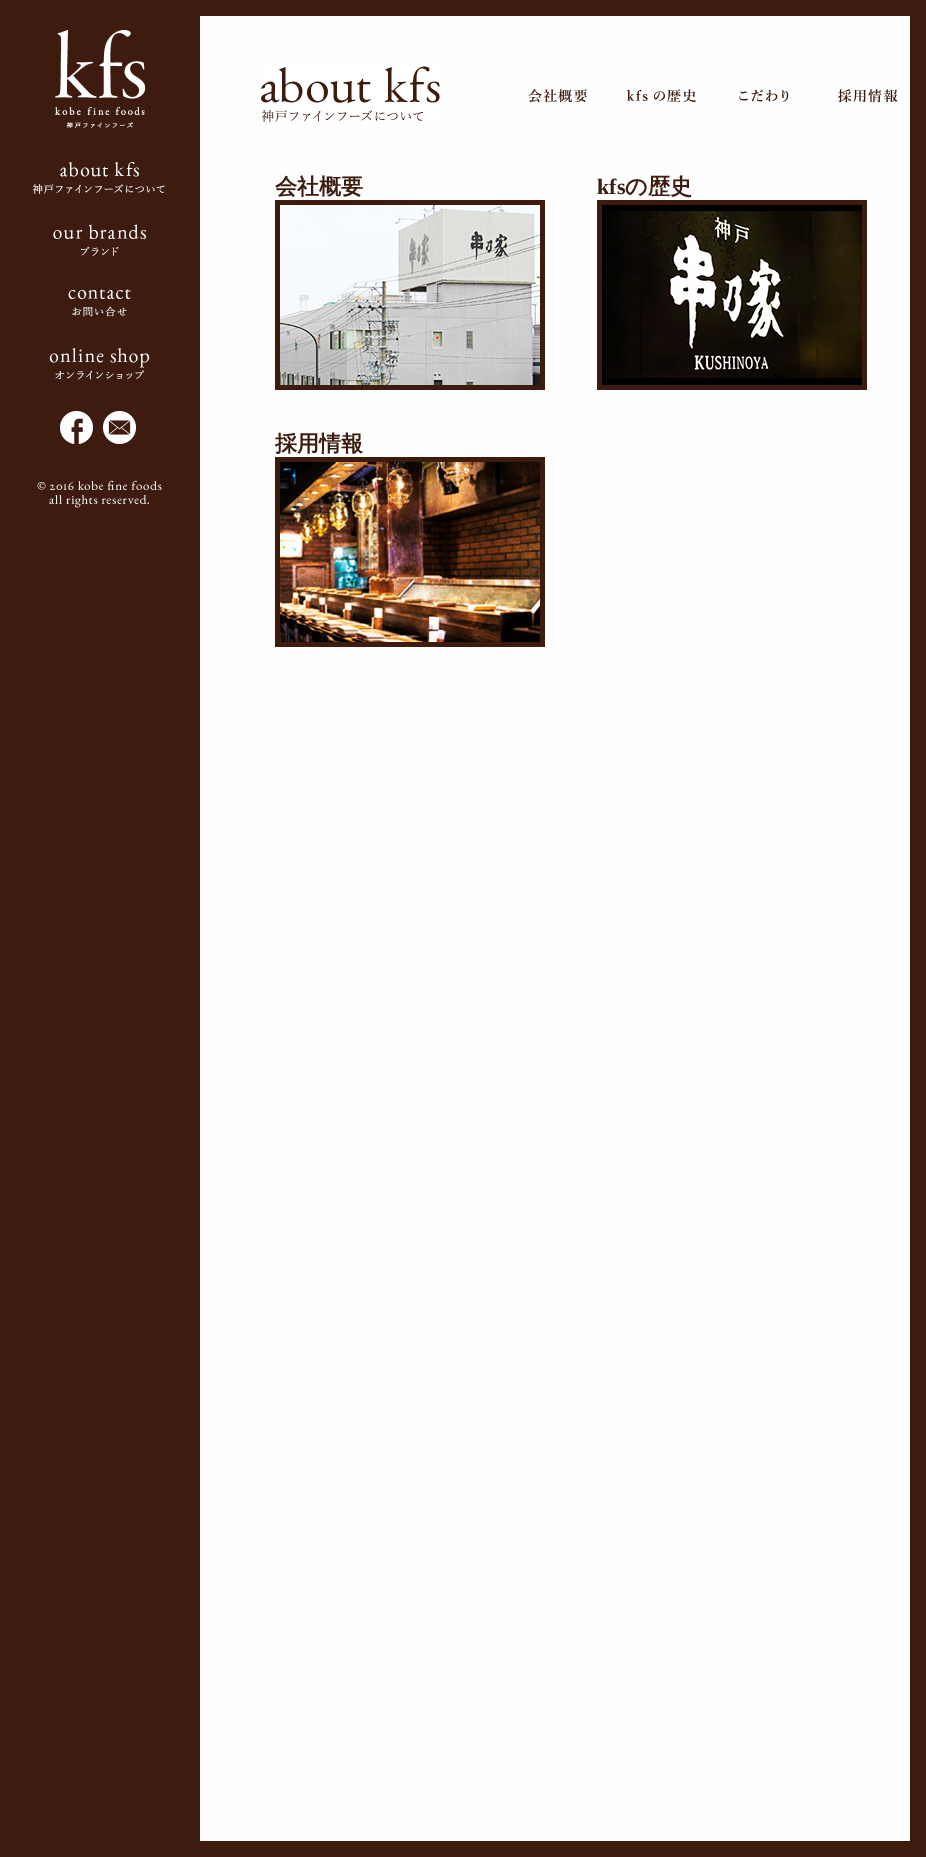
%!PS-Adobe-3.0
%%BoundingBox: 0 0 926 1857
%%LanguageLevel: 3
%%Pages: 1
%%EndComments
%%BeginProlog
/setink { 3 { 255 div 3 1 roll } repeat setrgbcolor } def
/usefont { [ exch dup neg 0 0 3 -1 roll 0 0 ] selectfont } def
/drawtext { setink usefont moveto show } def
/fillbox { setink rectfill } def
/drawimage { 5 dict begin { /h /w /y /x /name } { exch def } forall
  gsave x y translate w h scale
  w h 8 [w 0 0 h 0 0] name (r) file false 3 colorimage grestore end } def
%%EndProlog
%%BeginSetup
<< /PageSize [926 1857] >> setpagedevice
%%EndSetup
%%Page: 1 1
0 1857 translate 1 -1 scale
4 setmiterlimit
0 0 926 1857 61 27 14 fillbox
(assets/img1.rgb) 55 30 90 98 drawimage
(assets/img2.rgb) 32 162 133 32 drawimage
(assets/img3.rgb) 53 224 93 32 drawimage
(assets/img4.rgb) 68 289 63 28 drawimage
(assets/img5.rgb) 49 348 101 32 drawimage
(assets/img6.rgb) 60 411 33 33 drawimage
(assets/img7.rgb) 103 411 33 33 drawimage
(assets/img8.rgb) 37 480 125 28 drawimage
200 16 710 1825 254 254 254 fillbox
(assets/img9.rgb) 261 66 179 56 drawimage
(assets/img10.rgb) 528 89 59 14 drawimage
(assets/img11.rgb) 627 89 69 14 drawimage
(assets/img12.rgb) 739 89 50 13 drawimage
(assets/img13.rgb) 838 89 60 14 drawimage
(会社概要) 275 194 /WenQuanYiZenHei-Bold 22 61 27 14 drawtext
(assets/img14.rgb) 275 200 270 190 drawimage
(kfs) 597 194 /LiberationSerif-Bold 22 61 27 14 drawtext
(の歴史) 625 194 /WenQuanYiZenHei-Bold 22 61 27 14 drawtext
(assets/img15.rgb) 597 200 270 190 drawimage
(採用情報) 275 451 /WenQuanYiZenHei-Bold 22 61 27 14 drawtext
(assets/img16.rgb) 275 457 270 190 drawimage
showpage
%%EOF
